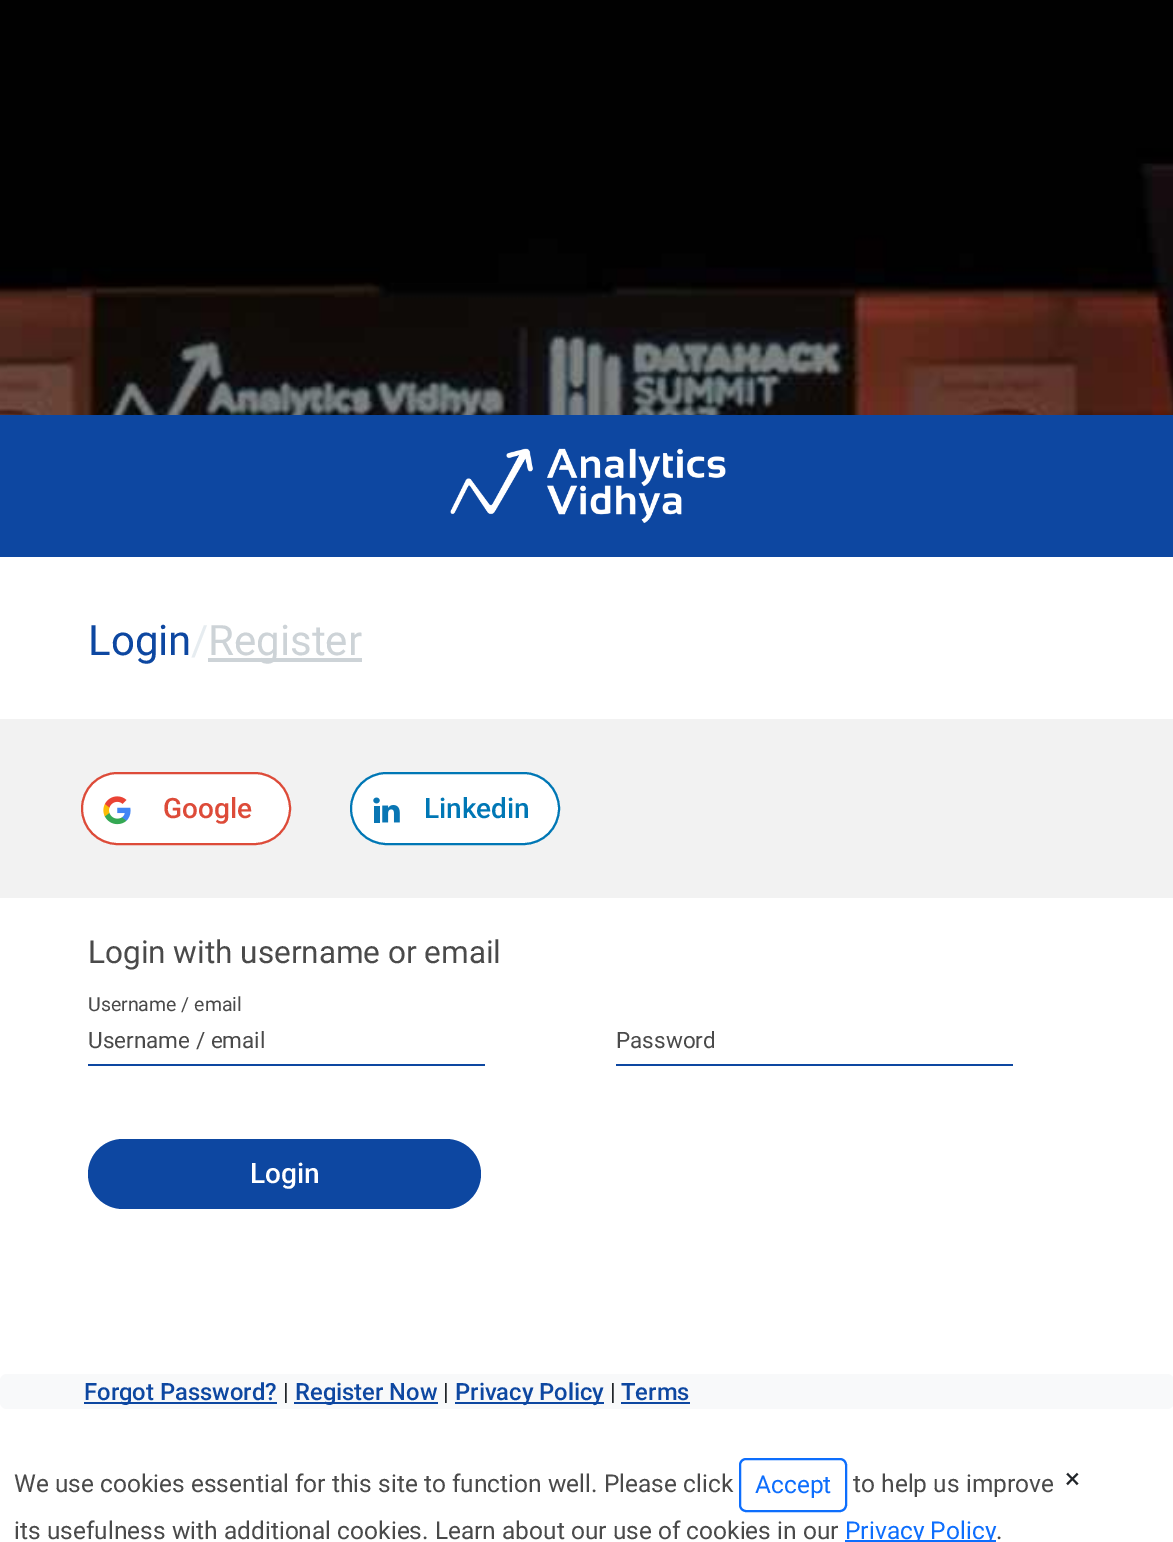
%!PS-Adobe-3.0
%%BoundingBox: 0 0 1173 1542
%%LanguageLevel: 3
%%Pages: 1
%%EndComments
%%BeginProlog
/setink { 3 { 255 div 3 1 roll } repeat setrgbcolor } def
/usefont { [ exch dup neg 0 0 3 -1 roll 0 0 ] selectfont } def
/drawtext { setink usefont moveto show } def
/fillbox { setink rectfill } def
/rrect { 5 dict begin { /r /h /w /y /x } { exch def } forall
  x r add y moveto x w add y 2 copy h add r arct x w add y h add x 1 index r arct
  x y h add x y r arct x y 2 copy exch w add exch r arct closepath end } def
/drawimage { 5 dict begin { /h /w /y /x /name } { exch def } forall
  gsave x y translate w h scale
  w h 8 [w 0 0 h 0 0] name (r) file false 3 colorimage grestore end } def
%%EndProlog
%%BeginSetup
<< /PageSize [1173 1542] >> setpagedevice
%%EndSetup
%%Page: 1 1
0 1542 translate 1 -1 scale
4 setmiterlimit
0 0 1173 1542 255 255 255 fillbox
(assets/img1.rgb) 0 0 1173 415 drawimage
0 415 1173 142 13 71 161 fillbox
(assets/img2.rgb) 450 448 276 75 drawimage
(Login) 88 655 /Roboto-Regular 42 13 71 161 drawtext
(/) 191 655 /Roboto-Regular 42 230 236 240 drawtext
208 658 154 4 205 211 215 fillbox
(Register) 208 655 /Roboto-Regular 42 205 211 215 drawtext
0 719 1173 179 242 242 242 fillbox
255 255 255 setink
82 773 208 71 35.5 rrect gsave fill grestore
221 75 57 setink
2 setlinewidth
stroke
(assets/img3.rgb) 103 796 28 29 drawimage
(Google) 163 818 /Roboto-Medium 28 221 75 57 drawtext
255 255 255 setink
351 773 208 71 35.5 rrect gsave fill grestore
0 119 181 setink
stroke
(assets/img4.rgb) 373 797 27 26 drawimage
(Linkedin) 424 818 /Roboto-Medium 28 0 119 181 drawtext
(Login with username or email) 88 963 /Roboto-Regular 31.5 74 74 74 drawtext
(Username / email) 88 1011 /Roboto-Regular 19.5 74 74 74 drawtext
(Username / email) 88 1048 /Roboto-Regular 22.5 74 74 74 drawtext
88 1064 397 2 13 71 161 fillbox
(Password) 616 1048 /Roboto-Regular 22.5 74 74 74 drawtext
616 1064 397 2 13 71 161 fillbox
88 1139 393 70 35 rrect fill
(Login) 250 1183 /Roboto-Medium 28 255 255 255 drawtext
248 249 250 setink
0 1374 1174 35 7 rrect fill
84 1402 193 2 13 71 161 fillbox
(Forgot Password?) 84 1400 /Roboto-Medium 23.75 13 71 161 drawtext
(|) 283 1400 /Roboto-Regular 23.75 33 37 41 drawtext
294 1402 144 2 13 71 161 fillbox
(Register Now) 295 1400 /Roboto-Medium 23.75 13 71 161 drawtext
(|) 443 1400 /Roboto-Regular 23.75 33 37 41 drawtext
455 1402 149 2 13 71 161 fillbox
(Privacy Policy) 455 1400 /Roboto-Medium 23.75 13 71 161 drawtext
(|) 610 1400 /Roboto-Regular 23.75 33 37 41 drawtext
(Terms) 621 1400 /Roboto-Medium 23.75 13 71 161 drawtext
621 1402 69 2 13 71 161 fillbox
(We use cookies essential for this site to function well. Please click) 14 1492 /Roboto-Regular 24.5 74 74 74 drawtext
13 110 253 setink
740 1459 106 52 6 rrect stroke
(Accept) 755 1493 /Roboto-Regular 24.5 13 110 253 drawtext
(to help us improve) 853 1492 /Roboto-Regular 24.5 74 74 74 drawtext
(its usefulness with additional cookies. Learn about our use of cookies in our) 14 1539 /Roboto-Regular 24.5 74 74 74 drawtext
845 1540 151 2 13 110 253 fillbox
(Privacy Policy) 845 1539 /Roboto-Regular 24.5 13 110 253 drawtext
(.) 996 1539 /Roboto-Regular 24.5 74 74 74 drawtext
(×) 1065 1488 /Roboto-Regular 28 33 37 41 drawtext
showpage
%%EOF
